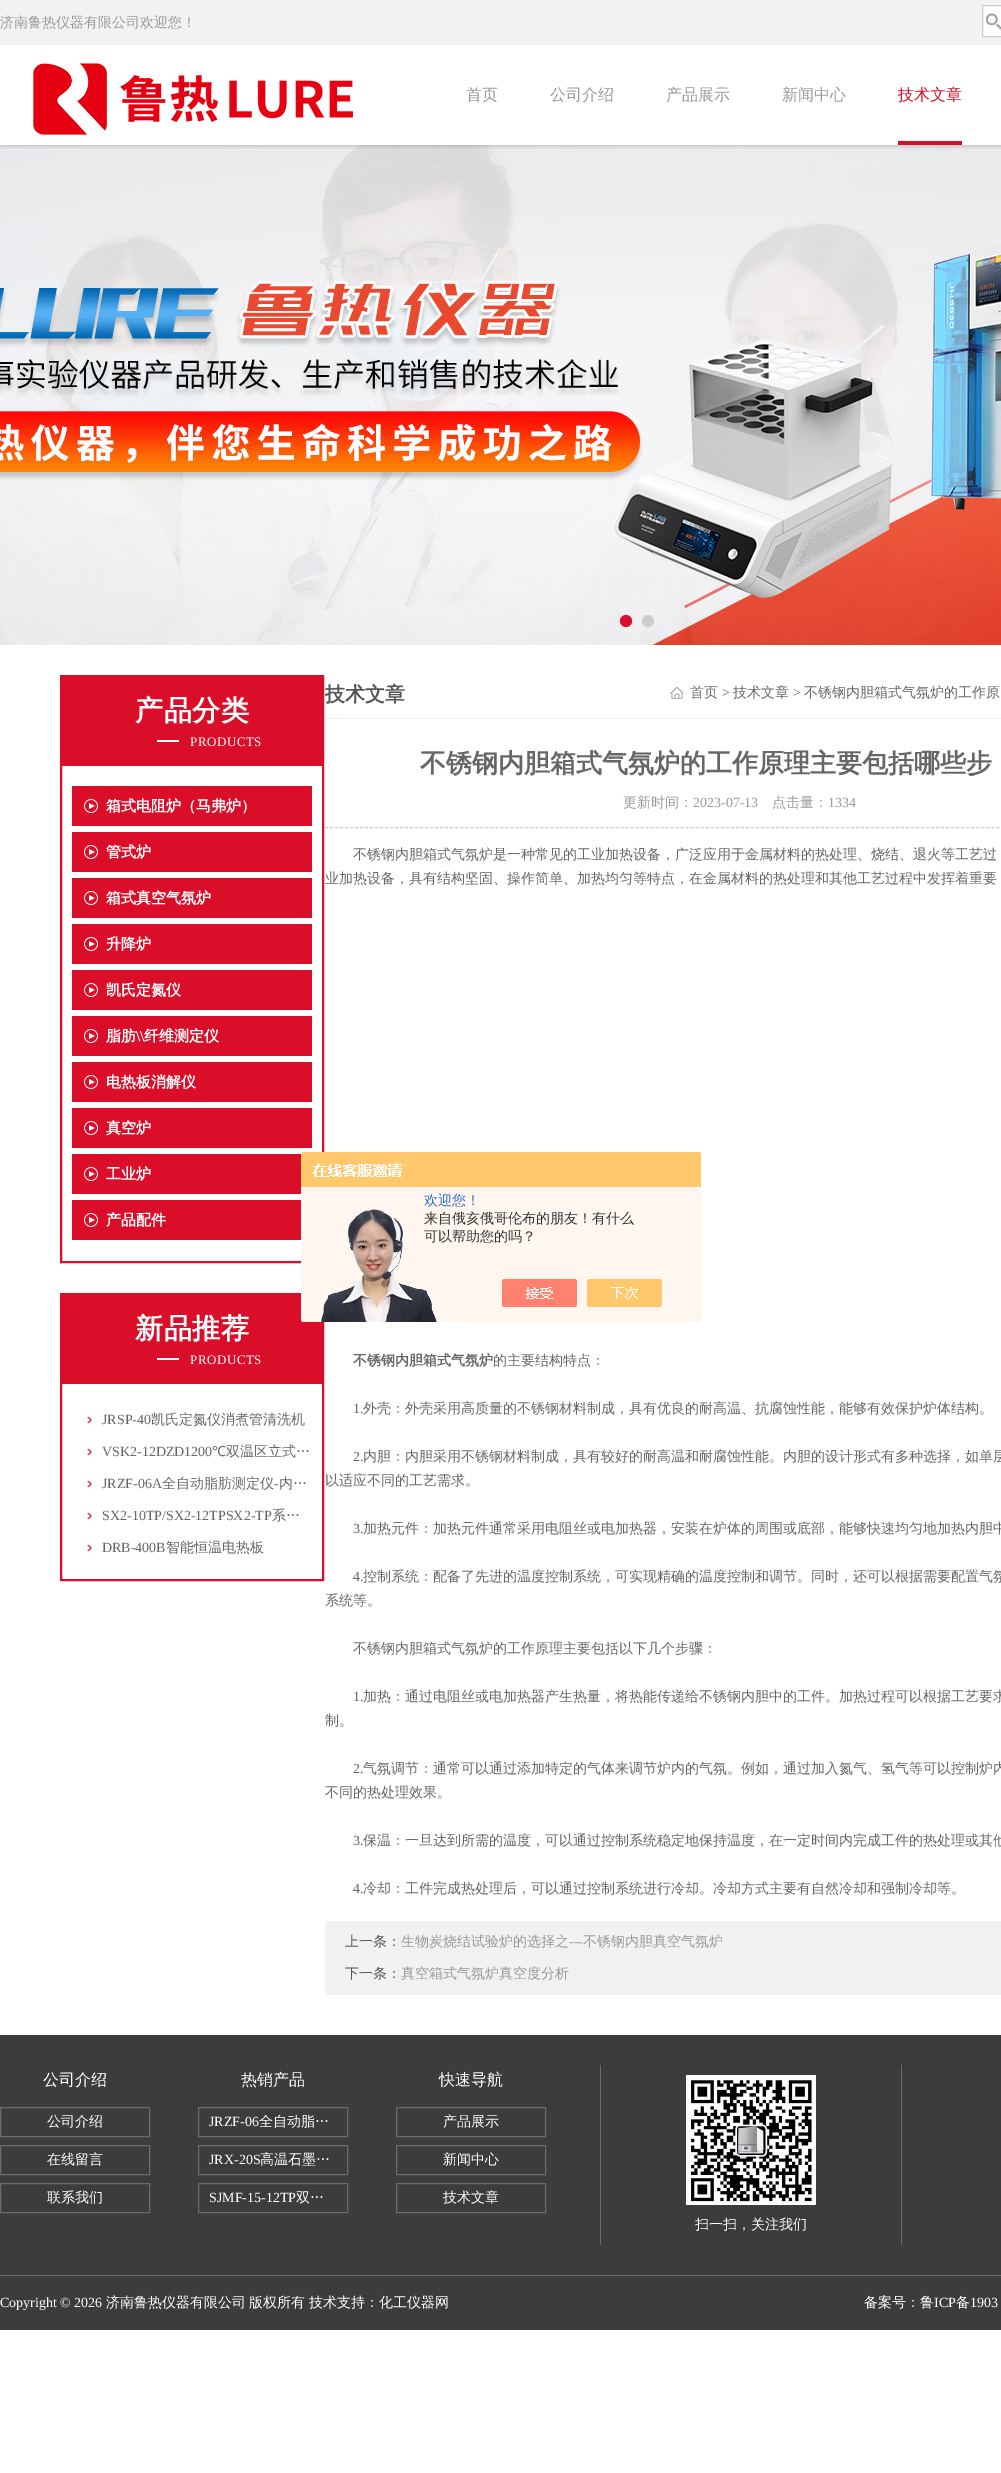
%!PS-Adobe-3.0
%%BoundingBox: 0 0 1001 2473
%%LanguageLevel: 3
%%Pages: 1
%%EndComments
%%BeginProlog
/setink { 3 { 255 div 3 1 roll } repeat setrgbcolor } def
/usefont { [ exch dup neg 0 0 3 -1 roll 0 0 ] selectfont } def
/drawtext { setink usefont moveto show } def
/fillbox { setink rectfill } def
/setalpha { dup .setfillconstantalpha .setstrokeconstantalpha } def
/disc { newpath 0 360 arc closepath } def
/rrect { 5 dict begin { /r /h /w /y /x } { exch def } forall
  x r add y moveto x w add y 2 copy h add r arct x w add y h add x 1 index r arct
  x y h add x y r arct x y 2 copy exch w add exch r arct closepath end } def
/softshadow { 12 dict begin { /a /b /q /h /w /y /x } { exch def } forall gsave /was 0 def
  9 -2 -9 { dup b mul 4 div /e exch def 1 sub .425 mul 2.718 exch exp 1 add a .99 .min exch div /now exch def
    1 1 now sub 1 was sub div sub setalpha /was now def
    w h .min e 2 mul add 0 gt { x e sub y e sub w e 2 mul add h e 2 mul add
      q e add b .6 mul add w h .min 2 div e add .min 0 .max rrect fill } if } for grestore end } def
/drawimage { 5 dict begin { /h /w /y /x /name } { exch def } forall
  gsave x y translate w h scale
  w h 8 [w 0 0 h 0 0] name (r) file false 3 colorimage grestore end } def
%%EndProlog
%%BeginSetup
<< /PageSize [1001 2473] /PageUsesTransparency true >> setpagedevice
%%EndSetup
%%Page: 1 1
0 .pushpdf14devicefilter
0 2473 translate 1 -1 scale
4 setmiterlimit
0 0 1001 2473 255 255 255 fillbox
(assets/img3.rgb) 0 145 1001 500 drawimage
gsave
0 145 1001 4 rectclip
0 0 0 setink
1 46 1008 100 0 2.5 0.2 softshadow
grestore
0 0 1001 45 242 242 242 fillbox
(济南鲁热仪器有限公司欢迎您！) 0 27 /WenQuanYiZenHei-Medium 14 153 153 153 drawtext
983 6 18 30 255 255 255 fillbox
(assets/img1.rgb) 986 11 15 20 drawimage
204 204 204 setink
982.5 5.5 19 31 rectstroke
(assets/img2.rgb) 33 63 320 72 drawimage
(首页) 466 100 /WenQuanYiZenHei-Medium 16 153 153 153 drawtext
(公司介绍) 550 100 /WenQuanYiZenHei-Medium 16 153 153 153 drawtext
(产品展示) 666 100 /WenQuanYiZenHei-Medium 16 153 153 153 drawtext
(新闻中心) 782 100 /WenQuanYiZenHei-Medium 16 153 153 153 drawtext
898 141 64 4 218 14 41 fillbox
(技术文章) 898 100 /WenQuanYiZenHei-Medium 16 218 14 41 drawtext
626 621 6 disc fill
204 204 204 setink
648 621 6 disc fill
218 14 41 setink
2 setlinewidth
61 676 262 586 rectstroke
62 677 260 89 218 14 41 fillbox
157 740 22 2 255 255 255 fillbox
/WenQuanYiZenHei-Bold 28 usefont
135 720 moveto 0.5 0 (产品分类) ashow
/LiberationSerif-Regular 13 usefont
190 746 moveto 0.5 0 (PRODUCTS) ashow
(assets/img4.rgb) 72 786 240 40 drawimage
(箱式电阻炉（马弗炉）) 106 811 /WenQuanYiZenHei-Bold 15 255 255 255 drawtext
(assets/img4.rgb) 72 832 240 40 drawimage
(管式炉) 106 857 /WenQuanYiZenHei-Bold 15 255 255 255 drawtext
(assets/img4.rgb) 72 878 240 40 drawimage
(箱式真空气氛炉) 106 903 /WenQuanYiZenHei-Bold 15 255 255 255 drawtext
(assets/img4.rgb) 72 924 240 40 drawimage
(升降炉) 106 949 /WenQuanYiZenHei-Bold 15 255 255 255 drawtext
(assets/img4.rgb) 72 970 240 40 drawimage
(凯氏定氮仪) 106 995 /WenQuanYiZenHei-Bold 15 255 255 255 drawtext
(assets/img4.rgb) 72 1016 240 40 drawimage
(脂肪) 106 1041 /WenQuanYiZenHei-Bold 15 255 255 255 drawtext
(\\\\) 136 1041 /LiberationSerif-Bold 15 255 255 255 drawtext
(纤维测定仪) 144 1041 /WenQuanYiZenHei-Bold 15 255 255 255 drawtext
(assets/img4.rgb) 72 1062 240 40 drawimage
(电热板消解仪) 106 1087 /WenQuanYiZenHei-Bold 15 255 255 255 drawtext
(assets/img4.rgb) 72 1108 240 40 drawimage
(真空炉) 106 1133 /WenQuanYiZenHei-Bold 15 255 255 255 drawtext
(assets/img5.rgb) 72 1154 229 40 drawimage
(工业炉) 106 1179 /WenQuanYiZenHei-Bold 15 255 255 255 drawtext
(assets/img5.rgb) 72 1200 229 40 drawimage
(产品配件) 106 1225 /WenQuanYiZenHei-Bold 15 255 255 255 drawtext
218 14 41 setink
61 1294 262 286 rectstroke
62 1295 260 89 218 14 41 fillbox
157 1358 22 2 255 255 255 fillbox
/WenQuanYiZenHei-Bold 28 usefont
135 1338 moveto 0.5 0 (新品推荐) ashow
/LiberationSerif-Regular 13 usefont
190 1364 moveto 0.5 0 (PRODUCTS) ashow
(assets/img6.rgb) 87 1417 5 6 drawimage
(JRSP-40) 102 1424 /LiberationSerif-Regular 14 102 102 102 drawtext
(凯氏定氮仪消煮管清洗机) 151 1424 /WenQuanYiZenHei-Medium 14 102 102 102 drawtext
(assets/img6.rgb) 87 1449 5 6 drawimage
(VSK2-12DZD1200) 102 1456 /LiberationSerif-Regular 14 102 102 102 drawtext
(℃) 212 1456 /NotoSans-Regular 14 102 102 102 drawtext
(双温区立式…) 226 1456 /WenQuanYiZenHei-Medium 14 102 102 102 drawtext
(assets/img6.rgb) 87 1481 5 6 drawimage
(JRZF-06A) 102 1488 /LiberationSerif-Regular 14 102 102 102 drawtext
(全自动脂肪测定仪) 162 1488 /WenQuanYiZenHei-Medium 14 102 102 102 drawtext
(-) 274 1488 /LiberationSerif-Regular 14 102 102 102 drawtext
(内…) 279 1488 /WenQuanYiZenHei-Medium 14 102 102 102 drawtext
(assets/img6.rgb) 87 1513 5 6 drawimage
(SX2-10TP/SX2-12TPSX2-TP) 102 1520 /LiberationSerif-Regular 14 102 102 102 drawtext
(系…) 272 1520 /WenQuanYiZenHei-Medium 14 102 102 102 drawtext
(assets/img6.rgb) 87 1545 5 6 drawimage
(DRB-400B) 102 1552 /LiberationSerif-Regular 14 102 102 102 drawtext
(智能恒温电热板) 166 1552 /WenQuanYiZenHei-Medium 14 102 102 102 drawtext
325 718 676 1 239 239 239 fillbox
gsave
325 675 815 43 rectclip
(技术文章) 325 701 /WenQuanYiZenHei-Bold 20 85 85 85 drawtext
grestore
(assets/img7.rgb) 670 687 13 12 drawimage
(首页) 690 697 /WenQuanYiZenHei-Medium 14 102 102 102 drawtext
(>) 722 697 /LiberationSerif-Regular 14 102 102 102 drawtext
(技术文章) 733 697 /WenQuanYiZenHei-Medium 14 102 102 102 drawtext
(>) 793 697 /LiberationSerif-Regular 14 102 102 102 drawtext
(不锈钢内胆箱式气氛炉的工作原) 804 697 /WenQuanYiZenHei-Medium 14 102 102 102 drawtext
(不锈钢内胆箱式气氛炉的工作原理主要包括哪些步) 420 772 /WenQuanYiZenHei-Bold 26 102 102 102 drawtext
204 204 204 setink
1 setlinewidth
[3 2.01] 0 setdash
325 827.5 moveto 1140 827.5 lineto stroke
(更新时间：) 623 807 /WenQuanYiZenHei-Medium 14 153 153 153 drawtext
(2023-07-13) 693 807 /LiberationSerif-Regular 14 153 153 153 drawtext
(点击量：) 772 807 /WenQuanYiZenHei-Medium 14 153 153 153 drawtext
(1334) 828 807 /LiberationSerif-Regular 14 153 153 153 drawtext
(不锈钢内胆箱式气氛炉是一种常见的工业加热设备，广泛应用于金属材料的热处理、烧结、退火等工艺过) 353 859 /WenQuanYiZenHei-Medium 14 102 102 102 drawtext
(业加热设备，具有结构坚固、操作简单、加热均匀等特点，在金属材料的热处理和其他工艺过程中发挥着重要) 325 883 /WenQuanYiZenHei-Medium 14 102 102 102 drawtext
(不锈钢内胆箱式气氛炉) 353 1365 /WenQuanYiZenHei-Bold 14 102 102 102 drawtext
(的主要结构特点：) 493 1365 /WenQuanYiZenHei-Medium 14 102 102 102 drawtext
(1.) 353 1413 /LiberationSerif-Regular 14 102 102 102 drawtext
(外壳：外壳采用高质量的不锈钢材料制成，具有优良的耐高温、抗腐蚀性能，能够有效保护炉体结构。) 363 1413 /WenQuanYiZenHei-Medium 14 102 102 102 drawtext
(2.) 353 1461 /LiberationSerif-Regular 14 102 102 102 drawtext
(内胆：内胆采用不锈钢材料制成，具有较好的耐高温和耐腐蚀性能。内胆的设计形式有多种选择，如单层) 363 1461 /WenQuanYiZenHei-Medium 14 102 102 102 drawtext
(以适应不同的工艺需求。) 325 1485 /WenQuanYiZenHei-Medium 14 102 102 102 drawtext
(3.) 353 1533 /LiberationSerif-Regular 14 102 102 102 drawtext
(加热元件：加热元件通常采用电阻丝或电加热器，安装在炉体的周围或底部，能够快速均匀地加热内胆中) 363 1533 /WenQuanYiZenHei-Medium 14 102 102 102 drawtext
(4.) 353 1581 /LiberationSerif-Regular 14 102 102 102 drawtext
(控制系统：配备了先进的温度控制系统，可实现精确的温度控制和调节。同时，还可以根据需要配置气氛) 363 1581 /WenQuanYiZenHei-Medium 14 102 102 102 drawtext
(系统等。) 325 1605 /WenQuanYiZenHei-Medium 14 102 102 102 drawtext
(不锈钢内胆箱式气氛炉的工作原理主要包括以下几个步骤：) 353 1653 /WenQuanYiZenHei-Medium 14 102 102 102 drawtext
(1.) 353 1701 /LiberationSerif-Regular 14 102 102 102 drawtext
(加热：通过电阻丝或电加热器产生热量，将热能传递给不锈钢内胆中的工件。加热过程可以根据工艺要求) 363 1701 /WenQuanYiZenHei-Medium 14 102 102 102 drawtext
(制。) 325 1725 /WenQuanYiZenHei-Medium 14 102 102 102 drawtext
(2.) 353 1773 /LiberationSerif-Regular 14 102 102 102 drawtext
(气氛调节：通常可以通过添加特定的气体来调节炉内的气氛。例如，通过加入氮气、氢气等可以控制炉内) 363 1773 /WenQuanYiZenHei-Medium 14 102 102 102 drawtext
(不同的热处理效果。) 325 1797 /WenQuanYiZenHei-Medium 14 102 102 102 drawtext
(3.) 353 1845 /LiberationSerif-Regular 14 102 102 102 drawtext
(保温：一旦达到所需的温度，可以通过控制系统稳定地保持温度，在一定时间内完成工件的热处理或其他) 363 1845 /WenQuanYiZenHei-Medium 14 102 102 102 drawtext
(4.) 353 1893 /LiberationSerif-Regular 14 102 102 102 drawtext
(冷却：工件完成热处理后，可以通过控制系统进行冷却。冷却方式主要有自然冷却和强制冷却等。) 363 1893 /WenQuanYiZenHei-Medium 14 102 102 102 drawtext
325 1921 676 74 241 241 241 fillbox
(上一条：) 345 1946 /WenQuanYiZenHei-Medium 14 85 85 85 drawtext
(生物炭烧结试验炉的选择之) 401 1946 /WenQuanYiZenHei-Medium 14 153 153 153 drawtext
(---) 569 1946 /LiberationSerif-Regular 14 153 153 153 drawtext
(不锈钢内胆真空气氛炉) 583 1946 /WenQuanYiZenHei-Medium 14 153 153 153 drawtext
(下一条：) 345 1978 /WenQuanYiZenHei-Medium 14 85 85 85 drawtext
(真空箱式气氛炉真空度分析) 401 1978 /WenQuanYiZenHei-Medium 14 153 153 153 drawtext
(assets/img8.rgb) 301 1152 400 170 drawimage
(欢迎您！) 424 1205 /WenQuanYiZenHei-Medium 14 46 110 198 drawtext
(来自俄亥俄哥伦布的朋友！有什么) 424 1223 /WenQuanYiZenHei-Medium 14 51 51 51 drawtext
(可以帮助您的吗？) 424 1241 /WenQuanYiZenHei-Medium 14 51 51 51 drawtext
0 2035 1001 240 60 60 60 fillbox
(公司介绍) 43 2085 /WenQuanYiZenHei-Medium 16 255 255 255 drawtext
106 106 106 setink
[] 0 setdash
0.5 2107.5 149 29 rectstroke
(公司介绍) 47 2126 /WenQuanYiZenHei-Medium 14 255 255 255 drawtext
106 106 106 setink
0.5 2145.5 149 29 rectstroke
(在线留言) 47 2164 /WenQuanYiZenHei-Medium 14 255 255 255 drawtext
106 106 106 setink
0.5 2183.5 149 29 rectstroke
(联系我们) 47 2202 /WenQuanYiZenHei-Medium 14 255 255 255 drawtext
(热销产品) 241 2085 /WenQuanYiZenHei-Medium 16 255 255 255 drawtext
106 106 106 setink
198.5 2107.5 149 29 rectstroke
(JRZF-06) 209 2126 /LiberationSerif-Regular 14 255 255 255 drawtext
(全自动脂…) 259 2126 /WenQuanYiZenHei-Medium 14 255 255 255 drawtext
106 106 106 setink
198.5 2145.5 149 29 rectstroke
(JRX-20S) 209 2164 /LiberationSerif-Regular 14 255 255 255 drawtext
(高温石墨…) 260 2164 /WenQuanYiZenHei-Medium 14 255 255 255 drawtext
106 106 106 setink
198.5 2183.5 149 29 rectstroke
(SJMF-15-12TP) 209 2202 /LiberationSerif-Regular 14 255 255 255 drawtext
(双…) 296 2202 /WenQuanYiZenHei-Medium 14 255 255 255 drawtext
(快速导航) 439 2085 /WenQuanYiZenHei-Medium 16 255 255 255 drawtext
106 106 106 setink
396.5 2107.5 149 29 rectstroke
(产品展示) 443 2126 /WenQuanYiZenHei-Medium 14 255 255 255 drawtext
106 106 106 setink
396.5 2145.5 149 29 rectstroke
(新闻中心) 443 2164 /WenQuanYiZenHei-Medium 14 255 255 255 drawtext
106 106 106 setink
396.5 2183.5 149 29 rectstroke
(技术文章) 443 2202 /WenQuanYiZenHei-Medium 14 255 255 255 drawtext
901 2065 1 180 106 106 106 fillbox
600 2065 1 180 106 106 106 fillbox
(assets/img9.rgb) 686 2075 130 130 drawimage
(扫一扫，关注我们) 695 2229 /WenQuanYiZenHei-Medium 14 255 255 255 drawtext
0 2276 1001 54 60 60 60 fillbox
0 2275 1001 1 106 106 106 fillbox
(Copyright © 2026) 0 2307 /LiberationSerif-Regular 14 255 255 255 drawtext
(济南鲁热仪器有限公司) 106 2307 /WenQuanYiZenHei-Medium 14 255 255 255 drawtext
(版权所有) 249 2307 /WenQuanYiZenHei-Medium 14 255 255 255 drawtext
(技术支持：化工仪器网) 309 2307 /WenQuanYiZenHei-Medium 14 255 255 255 drawtext
(备案号：鲁) 864 2307 /WenQuanYiZenHei-Medium 14 255 255 255 drawtext
(ICP) 934 2307 /LiberationSerif-Regular 14 255 255 255 drawtext
(备) 956 2307 /WenQuanYiZenHei-Medium 14 255 255 255 drawtext
(1903) 970 2307 /LiberationSerif-Regular 14 255 255 255 drawtext
.poppdf14devicefilter showpage
%%EOF
